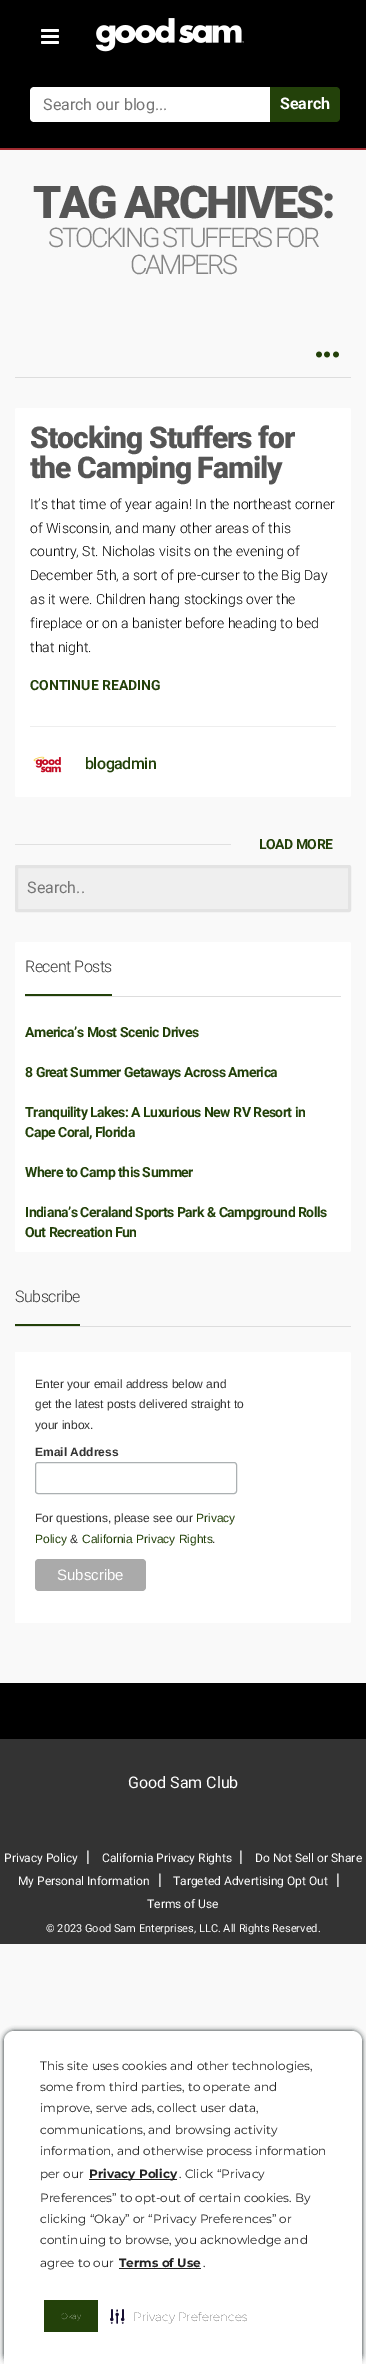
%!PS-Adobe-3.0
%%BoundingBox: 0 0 366 2364
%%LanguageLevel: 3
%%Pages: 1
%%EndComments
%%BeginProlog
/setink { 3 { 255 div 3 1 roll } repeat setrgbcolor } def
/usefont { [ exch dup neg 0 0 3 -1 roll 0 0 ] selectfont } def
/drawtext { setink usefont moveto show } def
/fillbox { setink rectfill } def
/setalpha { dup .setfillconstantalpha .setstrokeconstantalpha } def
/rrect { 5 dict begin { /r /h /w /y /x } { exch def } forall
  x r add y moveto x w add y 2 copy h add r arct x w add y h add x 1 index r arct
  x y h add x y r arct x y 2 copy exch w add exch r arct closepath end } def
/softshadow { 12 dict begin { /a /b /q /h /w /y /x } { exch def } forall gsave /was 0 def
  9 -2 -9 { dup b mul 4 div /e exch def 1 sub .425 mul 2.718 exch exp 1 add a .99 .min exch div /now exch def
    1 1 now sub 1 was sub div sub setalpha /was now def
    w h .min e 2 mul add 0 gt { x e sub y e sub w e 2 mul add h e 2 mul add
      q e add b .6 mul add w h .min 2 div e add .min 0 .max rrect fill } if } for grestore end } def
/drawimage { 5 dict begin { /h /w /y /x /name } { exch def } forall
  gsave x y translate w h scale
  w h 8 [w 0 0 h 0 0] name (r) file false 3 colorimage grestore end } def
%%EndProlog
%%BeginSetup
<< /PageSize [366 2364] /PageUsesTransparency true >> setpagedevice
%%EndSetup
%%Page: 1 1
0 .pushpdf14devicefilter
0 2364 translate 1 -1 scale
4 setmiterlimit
0 0 366 2364 249 249 249 fillbox
0 149 366 1 165 45 50 fillbox
0 148 366 1 157 43 48 fillbox
0 0 366 148 0 0 0 fillbox
(assets/img1.rgb) 41 29 18 15 drawimage
(assets/img2.rgb) 96 18 148 34 drawimage
255 255 255 setink
34 87 moveto 309 87 lineto 309 122 lineto 34 122 lineto 32 122 30 120 30 118 curveto 30 91 lineto 30 89 32 87 34 87 curveto closepath fill
(Search our blog...) 43 110 /Roboto-Regular 16 117 117 117 drawtext
35 65 10 setink
270 87 moveto 336 87 lineto 338 87 340 89 340 91 curveto 340 118 lineto 340 120 338 122 336 122 curveto 270 122 lineto closepath fill
(Search) 280 109 /Roboto-Bold 16 255 255 255 drawtext
15 377 336 1 221 221 221 fillbox
/Roboto-Black 45 usefont
85 85 85 setink
33 218 moveto -2.5 0 (TAG ARCHIVES:) ashow
/Roboto-Light 27 usefont
134 134 134 setink
48 247 moveto -2.5 0 (STOCKING STUFFERS FOR) ashow
130 274 moveto -2.5 0 (CAMPERS) ashow
(assets/img3.rgb) 316 351 6 7 drawimage
(assets/img3.rgb) 324 351 6 7 drawimage
(assets/img3.rgb) 333 351 6 7 drawimage
255 255 255 setink
15 408 336 389 2 rrect fill
/Roboto-Black 30 usefont
85 85 85 setink
30 448 moveto -1 0 (Stocking Stuffers for) ashow
30 478 moveto -1 0 (the Camping Family) ashow
(It’s that time of year again! In the northeast corner) 30 509 /Roboto-Light 14 0 0 0 drawtext
(of Wisconsin, and many other areas of this) 30 533 /Roboto-Light 14 0 0 0 drawtext
(country, St. Nicholas visits on the evening of) 30 556 /Roboto-Light 14 0 0 0 drawtext
(December 5th, a sort of pre-curser to the Big Day) 30 580 /Roboto-Light 14 0 0 0 drawtext
(as it were. Children hang stockings over the) 30 604 /Roboto-Light 14 0 0 0 drawtext
(fireplace or on a banister before heading to bed) 30 628 /Roboto-Light 14 0 0 0 drawtext
(that night.) 30 652 /Roboto-Light 14 0 0 0 drawtext
(CONTINUE READING) 30 690 /Roboto-Bold 14 35 65 10 drawtext
30 726 306 1 238 238 238 fillbox
(assets/img4.rgb) 33 756 29 17 drawimage
/Roboto-Medium 16 usefont
35 65 10 setink
85 769 moveto -0.5 0 (blogadmin) ashow
15 844 216 1 224 224 224 fillbox
/Roboto-Bold 14 usefont
35 65 10 setink
259 849 moveto -0.5 0 (LOAD MORE) ashow
239 239 239 setink
16.5 866.5 333 44 0.5 rrect gsave fill grestore
227 227 227 setink
3 setlinewidth
stroke
(Search..) 27 893 /Roboto-Regular 16 117 117 117 drawtext
255 255 255 setink
15 942 336 310 2 rrect fill
25 996 316 1 221 221 221 fillbox
/Roboto-Light 16 usefont
51 51 51 setink
25 972 moveto -0.5 0 (Recent Posts) ashow
25 994 87 2 35 65 10 fillbox
/Roboto-Bold 14 usefont
25 1037 moveto -0.5 0 (America’s Most Scenic Drives) ashow
25 1077 moveto -0.5 0 (8 Great Summer Getaways Across America) ashow
25 1117 moveto -0.5 0 (Tranquility Lakes: A Luxurious New RV Resort in) ashow
25 1137 moveto -0.5 0 (Cape Coral, Florida) ashow
25 1177 moveto -0.5 0 (Where to Camp this Summer) ashow
25 1217 moveto -0.5 0 (Indiana’s Ceraland Sports Park & Campground Rolls) ashow
25 1237 moveto -0.5 0 (Out Recreation Fun) ashow
15 1326 336 1 221 221 221 fillbox
/Roboto-Light 16 usefont
51 51 51 setink
15 1302 moveto -0.5 0 (Subscribe) ashow
15 1324 65 2 35 65 10 fillbox
255 255 255 setink
15 1352 336 271 2 rrect fill
15 1352 1 271 255 255 255 fillbox
(Enter your email address below and) 35 1388 /LiberationSans-Regular 12 51 51 51 drawtext
(get the latest posts delivered straight to) 35 1408 /LiberationSans-Regular 12 51 51 51 drawtext
(your inbox.) 35 1429 /LiberationSans-Regular 12 51 51 51 drawtext
(Email Address) 35 1456 /LiberationSans-Bold 12 51 51 51 drawtext
171 176 178 setink
1 setlinewidth
35.5 1462.5 201 31 2.5 rrect stroke
(For questions, please see our) 35 1522 /LiberationSans-Regular 12 51 51 51 drawtext
(Privacy) 196 1522 /LiberationSans-Regular 12 35 65 10 drawtext
(Policy) 35 1543 /LiberationSans-Regular 12 35 65 10 drawtext
(&) 70 1543 /LiberationSans-Regular 12 51 51 51 drawtext
(California Privacy Rights) 82 1543 /LiberationSans-Regular 12 35 65 10 drawtext
(.) 212 1543 /LiberationSans-Regular 12 51 51 51 drawtext
170 170 170 setink
35 1559 111 32 4 rrect fill
(Subscribe) 57 1580 /LiberationSans-Regular 15 255 255 255 drawtext
0 1683 366 56 0 0 0 fillbox
0 1739 366 205 51 51 51 fillbox
(Good Sam Club) 128 1788 /Roboto-Regular 16 255 255 255 drawtext
(Privacy Policy) 4 1862 /Roboto-Regular 12 255 255 255 drawtext
(|) 86 1862 /Roboto-Regular 16 255 255 255 drawtext
(California Privacy Rights) 102 1862 /Roboto-Regular 12 255 255 255 drawtext
(|) 239 1862 /Roboto-Regular 16 255 255 255 drawtext
(Do Not Sell or Share) 255 1862 /Roboto-Regular 12 255 255 255 drawtext
(My Personal Information) 18 1885 /Roboto-Regular 12 255 255 255 drawtext
(|) 158 1885 /Roboto-Regular 16 255 255 255 drawtext
(Targeted Advertising Opt Out) 173 1885 /Roboto-Regular 12 255 255 255 drawtext
(|) 336 1885 /Roboto-Regular 16 255 255 255 drawtext
(Terms of Use) 147 1908 /Roboto-Regular 12 255 255 255 drawtext
(© 2023 Good Sam Enterprises, LLC. All Rights Reserved.) 46 1932 /Roboto-Regular 11 255 255 255 drawtext
25 34 36 setink
4 2031 358 333 10 2.5 1 softshadow
255 255 255 setink
14 2031 moveto 352 2031 lineto 357.5 2031 362 2035.5 362 2041 curveto 362 2364 lineto 4 2364 lineto 4 2041 lineto 4 2035.5 8.5 2031 14 2031 curveto closepath fill
(This site uses cookies and other technologies,) 40 2070 /Montserrat-Regular 12 35 35 35 drawtext
(some from third parties, to operate and) 40 2091 /Montserrat-Regular 12 35 35 35 drawtext
(improve, serve ads, collect user data,) 40 2112 /Montserrat-Regular 12 35 35 35 drawtext
(communications, and browsing activity) 40 2134 /Montserrat-Regular 12 35 35 35 drawtext
(information, and otherwise process information) 40 2155 /Montserrat-Regular 12 35 35 35 drawtext
(per our) 40 2178 /Montserrat-Regular 12 35 35 35 drawtext
89 2179 88 1 35 35 35 fillbox
(Privacy Policy) 89 2178 /Montserrat-Bold 12 35 35 35 drawtext
(. Click “Privacy) 179 2178 /Montserrat-Regular 12 35 35 35 drawtext
(Preferences” to opt-out of certain cookies. By) 40 2202 /Montserrat-Regular 12 35 35 35 drawtext
(clicking “Okay” or “Privacy Preferences” or) 40 2223 /Montserrat-Regular 12 35 35 35 drawtext
(continuing to browse, you acknowledge and) 40 2244 /Montserrat-Regular 12 35 35 35 drawtext
(agree to our) 40 2267 /Montserrat-Regular 12 35 35 35 drawtext
(Terms of Use) 119 2267 /Montserrat-Bold 12 35 35 35 drawtext
119 2268 82 1 35 35 35 fillbox
(.) 203 2267 /Montserrat-Regular 12 35 35 35 drawtext
44 2300 54 32 35 65 10 fillbox
(Okay) 61 2319 /Montserrat-Thin 8 255 255 255 drawtext
(assets/img5.rgb) 110 2309 15 15 drawimage
(Privacy Preferences) 133 2321 /Montserrat-Thin 12 35 35 35 drawtext
.poppdf14devicefilter showpage
%%EOF
